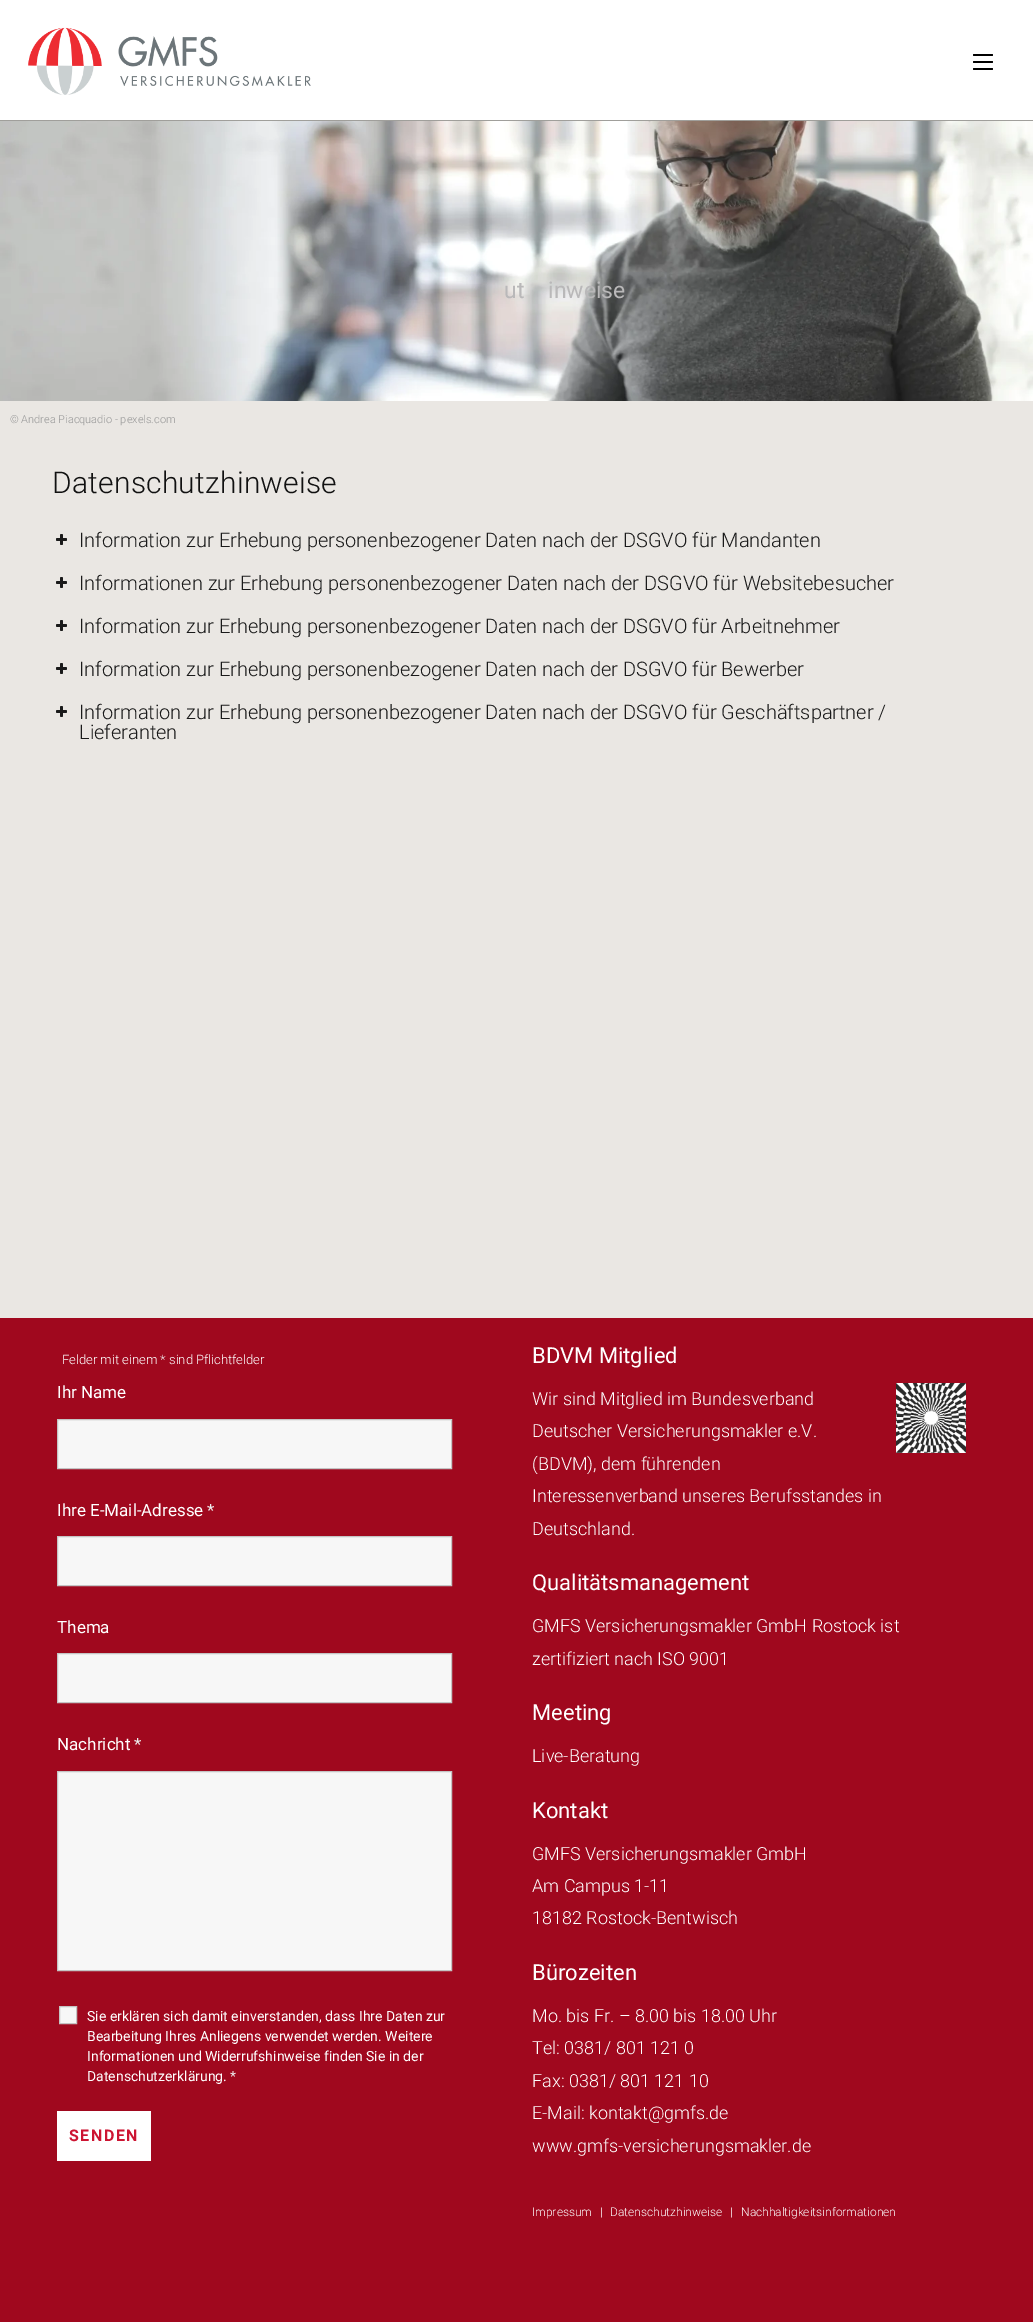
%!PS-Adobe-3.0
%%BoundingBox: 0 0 1033 2322
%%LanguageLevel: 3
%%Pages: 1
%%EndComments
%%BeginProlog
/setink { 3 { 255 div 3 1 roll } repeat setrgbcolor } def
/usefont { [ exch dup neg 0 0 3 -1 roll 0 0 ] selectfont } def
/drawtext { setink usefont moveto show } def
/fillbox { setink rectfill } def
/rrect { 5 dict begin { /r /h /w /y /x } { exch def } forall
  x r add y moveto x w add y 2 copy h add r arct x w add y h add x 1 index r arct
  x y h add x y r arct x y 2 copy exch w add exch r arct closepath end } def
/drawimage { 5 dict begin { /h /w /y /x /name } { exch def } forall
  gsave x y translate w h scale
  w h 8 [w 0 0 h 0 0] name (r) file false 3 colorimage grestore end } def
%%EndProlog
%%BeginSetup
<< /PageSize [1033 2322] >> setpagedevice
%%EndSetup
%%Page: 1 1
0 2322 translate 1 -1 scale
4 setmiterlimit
0 0 1033 2322 234 231 227 fillbox
0 0 1033 120 255 255 255 fillbox
0 120 1033 1 160 159 155 fillbox
(assets/img1.rgb) 28 27 283 68 drawimage
0 0 0 setink
973 61 20 2 1 rrect fill
973 54 20 2 1 rrect fill
973 68 20 2 1 rrect fill
(assets/img2.rgb) 0 121 1033 280 drawimage
(ut) 504 298 /Roboto-Regular 23 185 184 185 drawtext
(inweise) 548 298 /Roboto-Regular 23 185 184 185 drawtext
(© Andrea Piacquadio - pexels.com) 10 423 /Roboto-Light 11 153 153 153 drawtext
/Roboto-Light 30 usefont
17 17 17 setink
52 493 moveto 0.25 0 (Datenschutzhinweise) ashow
(assets/img3.rgb) 56 534 11 11 drawimage
(Information zur Erhebung personenbezogener Daten nach der DSGVO für Mandanten) 79 547 /Roboto-Light 20 26 26 26 drawtext
(assets/img3.rgb) 56 577 11 11 drawimage
(Informationen zur Erhebung personenbezogener Daten nach der DSGVO für Websitebesucher) 79 590 /Roboto-Light 20 26 26 26 drawtext
(assets/img3.rgb) 56 620 11 11 drawimage
(Information zur Erhebung personenbezogener Daten nach der DSGVO für Arbeitnehmer) 79 633 /Roboto-Light 20 26 26 26 drawtext
(assets/img3.rgb) 56 663 11 11 drawimage
(Information zur Erhebung personenbezogener Daten nach der DSGVO für Bewerber) 79 676 /Roboto-Light 20 26 26 26 drawtext
(assets/img3.rgb) 56 706 11 11 drawimage
(Information zur Erhebung personenbezogener Daten nach der DSGVO für Geschäftspartner /) 79 719 /Roboto-Light 20 26 26 26 drawtext
(Lieferanten) 79 739 /Roboto-Light 20 26 26 26 drawtext
0 1318 1033 1004 160 8 30 fillbox
(Felder mit einem) 62 1364 /Roboto-Light 13 255 255 255 drawtext
(*) 160 1364 /Roboto-Light 13 238 238 238 drawtext
(sind Pflichtfelder) 169 1364 /Roboto-Light 13 255 255 255 drawtext
(Ihr Name) 57 1398 /Roboto-Regular 17 255 255 255 drawtext
247 247 247 setink
57.5 1419.5 moveto 451.5 1419.5 lineto 451.5 1468.5 lineto 57.5 1468.5 lineto closepath gsave fill grestore
196 196 196 setink
stroke
(Ihre E-Mail-Adresse) 57 1516 /Roboto-Regular 17 255 255 255 drawtext
(*) 207 1516 /Roboto-Regular 17 238 238 238 drawtext
247 247 247 setink
57.5 1536.5 moveto 451.5 1536.5 lineto 451.5 1585.5 lineto 57.5 1585.5 lineto closepath gsave fill grestore
196 196 196 setink
stroke
(Thema) 57 1633 /Roboto-Regular 17 255 255 255 drawtext
247 247 247 setink
57.5 1653.5 moveto 451.5 1653.5 lineto 451.5 1702.5 lineto 57.5 1702.5 lineto closepath gsave fill grestore
196 196 196 setink
stroke
(Nachricht) 57 1750 /Roboto-Regular 17 255 255 255 drawtext
(*) 134 1750 /Roboto-Regular 17 238 238 238 drawtext
247 247 247 setink
57.5 1771.5 moveto 451.5 1771.5 lineto 451.5 1970.5 lineto 57.5 1970.5 lineto closepath gsave fill grestore
196 196 196 setink
stroke
247 247 247 setink
59.5 2006.5 moveto 76.5 2006.5 lineto 76.5 2023.5 lineto 59.5 2023.5 lineto closepath gsave fill grestore
196 196 196 setink
stroke
(Sie erklären sich damit einverstanden, dass Ihre Daten zur) 87 2021 /Roboto-Regular 14 255 255 255 drawtext
(Bearbeitung Ihres Anliegens verwendet werden. Weitere) 87 2041 /Roboto-Regular 14 255 255 255 drawtext
(Informationen und Widerrufshinweise finden Sie in der) 87 2061 /Roboto-Regular 14 255 255 255 drawtext
(Datenschutzerklärung.) 87 2081 /Roboto-Regular 14 255 255 255 drawtext
(*) 230 2081 /Roboto-Regular 14 238 238 238 drawtext
57 2111 94 50 255 255 255 fillbox
/Roboto-Bold 16 usefont
205 20 50 setink
69 2141 moveto 1.5 0 (SENDEN) ashow
(BDVM Mitglied) 532 1363 /Roboto-Regular 22 255 255 255 drawtext
(Wir sind Mitglied im Bundesverband) 532 1405 /Roboto-Light 18 255 255 255 drawtext
(assets/img4.rgb) 896 1383 70 70 drawimage
(Deutscher Versicherungsmakler e.V.) 532 1437 /Roboto-Light 18 255 255 255 drawtext
(\(BDVM\), dem führenden) 532 1470 /Roboto-Light 18 255 255 255 drawtext
(Interessenverband unseres Berufsstandes in) 532 1502 /Roboto-Light 18 255 255 255 drawtext
(Deutschland.) 532 1535 /Roboto-Light 18 255 255 255 drawtext
(Qualitätsmanagement) 532 1590 /Roboto-Regular 22 255 255 255 drawtext
(GMFS Versicherungsmakler GmbH Rostock ist) 532 1632 /Roboto-Light 18 255 255 255 drawtext
(zertifiziert nach ISO 9001) 532 1665 /Roboto-Light 18 255 255 255 drawtext
(Meeting) 532 1720 /Roboto-Regular 22 255 255 255 drawtext
(Live-Beratung) 532 1762 /Roboto-Light 18 255 255 255 drawtext
(Kontakt) 532 1818 /Roboto-Regular 22 255 255 255 drawtext
(GMFS Versicherungsmakler GmbH) 532 1860 /Roboto-Light 18 255 255 255 drawtext
(Am Campus 1-11) 532 1892 /Roboto-Light 18 255 255 255 drawtext
(18182 Rostock-Bentwisch) 532 1924 /Roboto-Light 18 255 255 255 drawtext
(Bürozeiten) 532 1980 /Roboto-Regular 22 255 255 255 drawtext
(Mo. bis Fr. – 8.00 bis 18.00 Uhr) 532 2022 /Roboto-Light 18 255 255 255 drawtext
(Tel: 0381/ 801 121 0) 532 2054 /Roboto-Light 18 255 255 255 drawtext
(Fax: 0381/ 801 121 10) 532 2087 /Roboto-Light 18 255 255 255 drawtext
(E-Mail: kontakt@gmfs.de) 532 2119 /Roboto-Light 18 255 255 255 drawtext
(www.gmfs-versicherungsmakler.de) 532 2152 /Roboto-Light 18 255 255 255 drawtext
(Impressum) 532 2216 /Roboto-Light 12 255 255 255 drawtext
(|) 600 2216 /Roboto-Light 12 255 255 255 drawtext
(Datenschutzhinweise) 610 2216 /Roboto-Light 12 255 255 255 drawtext
(|) 730 2216 /Roboto-Light 12 255 255 255 drawtext
(Nachhaltigkeitsinformationen) 741 2216 /Roboto-Light 12 255 255 255 drawtext
showpage
%%EOF
